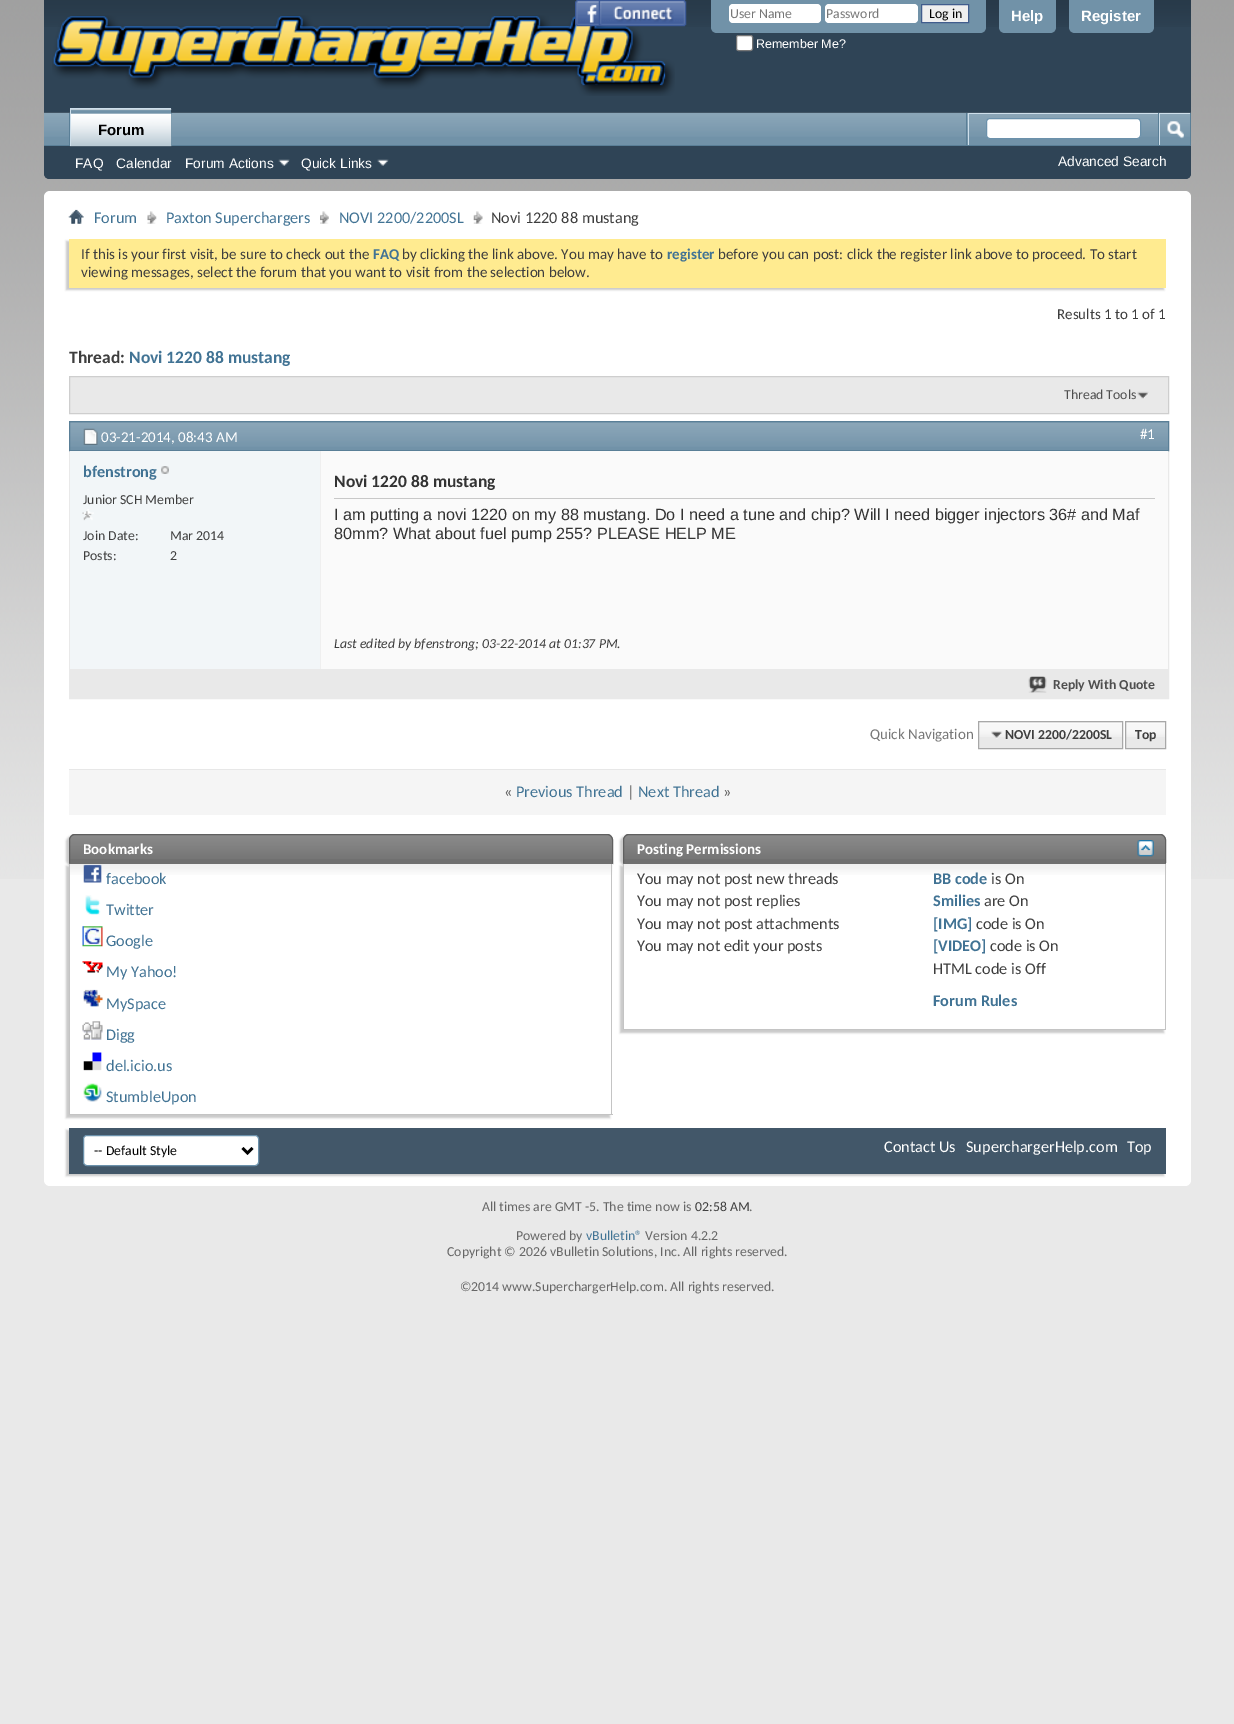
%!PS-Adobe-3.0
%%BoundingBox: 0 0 1234 1724
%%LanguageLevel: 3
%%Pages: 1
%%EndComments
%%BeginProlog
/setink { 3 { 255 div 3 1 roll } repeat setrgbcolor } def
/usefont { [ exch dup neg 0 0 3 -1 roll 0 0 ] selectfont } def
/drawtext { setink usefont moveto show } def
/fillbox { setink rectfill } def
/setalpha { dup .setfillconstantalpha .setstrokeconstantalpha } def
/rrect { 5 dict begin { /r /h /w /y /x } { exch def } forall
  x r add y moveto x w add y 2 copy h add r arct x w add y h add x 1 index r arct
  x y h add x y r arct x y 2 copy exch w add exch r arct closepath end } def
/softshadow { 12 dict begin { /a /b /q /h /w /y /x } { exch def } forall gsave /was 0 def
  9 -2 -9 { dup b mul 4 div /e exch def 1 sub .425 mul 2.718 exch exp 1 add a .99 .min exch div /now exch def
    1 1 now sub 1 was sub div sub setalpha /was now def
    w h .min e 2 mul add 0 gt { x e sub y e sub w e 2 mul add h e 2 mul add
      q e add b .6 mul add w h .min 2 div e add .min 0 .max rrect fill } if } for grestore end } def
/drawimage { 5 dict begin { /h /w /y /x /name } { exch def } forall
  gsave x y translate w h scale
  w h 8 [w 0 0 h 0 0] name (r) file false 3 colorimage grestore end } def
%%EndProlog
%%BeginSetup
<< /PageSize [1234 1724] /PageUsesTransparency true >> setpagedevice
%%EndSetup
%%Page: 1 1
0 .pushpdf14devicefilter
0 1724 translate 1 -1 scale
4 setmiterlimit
0 0 1234 1724 233 233 233 fillbox
(assets/img1.rgb) 0 0 1234 879 drawimage
47 68 86 setink
44 0 moveto 1191 0 lineto 1191 173 lineto 1191 176.5 1188.5 179 1185 179 curveto 50 179 lineto 46.5 179 44 176.5 44 173 curveto closepath fill
(assets/img2.rgb) 44 0 1147 27 drawimage
(assets/img3.rgb) 52 15 623 81 drawimage
(assets/img4.rgb) 575 0 112 27 drawimage
113 146 168 setink
711 0 moveto 986 0 lineto 986 27 lineto 986 30.5 983.5 33 980 33 curveto 717 33 lineto 713.5 33 711 30.5 711 27 curveto closepath fill
255 255 255 setink
729 4 92 19 4 rrect fill
(User Name) 730 18 /Carlito-Regular 13.75 119 119 119 drawtext
255 255 255 setink
825 4 93 19 4 rrect fill
(Password) 826 18 /Carlito-Regular 13.75 119 119 119 drawtext
239 239 239 setink
921.5 4.5 moveto 968.5 4.5 lineto 968.5 22.5 lineto 921.5 22.5 lineto closepath gsave fill grestore
65 93 141 setink
stroke
(Log in) 929 18 /Carlito-Regular 13.75 0 0 0 drawtext
255 255 255 setink
736.5 35.5 16 15 2 rrect gsave fill grestore
118 118 118 setink
stroke
(Remember Me?) 756 48 /LiberationSans-Regular 12.5 255 255 255 drawtext
113 146 168 setink
999 0 moveto 1056 0 lineto 1056 27 lineto 1056 30.5 1053.5 33 1050 33 curveto 1005 33 lineto 1001.5 33 999 30.5 999 27 curveto closepath fill
(Help) 1011 21 /LiberationSans-Bold 15 255 255 255 drawtext
113 146 168 setink
1069 0 moveto 1154 0 lineto 1154 27 lineto 1154 30.5 1151.5 33 1148 33 curveto 1075 33 lineto 1071.5 33 1069 30.5 1069 27 curveto closepath fill
(Register) 1081 21 /LiberationSans-Bold 15 255 255 255 drawtext
47 68 86 setink
44 113 moveto 1191 113 lineto 1191 173 lineto 1191 176.5 1188.5 179 1185 179 curveto 50 179 lineto 46.5 179 44 176.5 44 173 curveto closepath fill
44 113 1146 32 113 146 168 fillbox
(assets/img5.rgb) 44 112 1147 25 drawimage
171 113 1 32 90 127 151 fillbox
69 113 1 32 90 127 151 fillbox
44 145 1147 1 90 127 151 fillbox
71 109 100 37 113 146 168 fillbox
(assets/img6.rgb) 70 108 102 39 drawimage
70 108 101 1 206 223 235 fillbox
70 108 1 38 206 223 235 fillbox
(Forum) 98 135 /LiberationSans-Bold 15 0 0 0 drawtext
(FAQ) 75 168 /LiberationSans-Regular 13.75 255 255 255 drawtext
(Calendar) 116 168 /LiberationSans-Regular 13.75 255 255 255 drawtext
(Forum Actions) 185 168 /LiberationSans-Regular 13.75 255 255 255 drawtext
(assets/img7.rgb) 278 159 12 7 drawimage
(Quick Links) 301 168 /LiberationSans-Regular 13.75 255 255 255 drawtext
(assets/img8.rgb) 377 159 12 7 drawimage
966 113 1 32 90 127 151 fillbox
968 113 190 1 206 223 235 fillbox
968 113 1 32 206 223 235 fillbox
255 255 255 setink
986.5 118.5 154 20 3.5 rrect gsave fill grestore
107 145 171 setink
stroke
1190 113 1 32 90 127 151 fillbox
1158 113 1 32 90 127 151 fillbox
1159 113 31 1 206 223 235 fillbox
1159 113 1 32 206 223 235 fillbox
(assets/img9.rgb) 1167 121 17 18 drawimage
(Advanced Search) 1058 166 /LiberationSans-Regular 13.75 255 255 255 drawtext
44 191 1147 995 6 rrect fill
(assets/img10.rgb) 68 209 16 15 drawimage
(assets/img11.rgb) 147 211 10 13 drawimage
(Forum) 94 223 /Carlito-Regular 16.25 65 115 148 drawtext
(assets/img12.rgb) 320 211 9 13 drawimage
(Paxton Superchargers) 166 223 /Carlito-Regular 16.25 65 115 148 drawtext
(assets/img13.rgb) 473 211 10 13 drawimage
(NOVI 2200/2200SL) 339 223 /Carlito-Regular 16.25 65 115 148 drawtext
(Novi 1220 88 mustang) 491 223 /Carlito-Regular 16.25 62 62 62 drawtext
200 200 200 setink
66 241 1098 49 0 1 1 softshadow
69 239 1097 49 255 235 144 fillbox
(If this is your first visit, be sure to check out the) 81 259 /Carlito-Regular 15 62 62 62 drawtext
(FAQ) 373 259 /Carlito-Bold 15 65 115 148 drawtext
(by clicking the link above. You may have to) 402 259 /Carlito-Regular 15 62 62 62 drawtext
(register) 667 259 /Carlito-Bold 15 65 115 148 drawtext
(before you can post: click the register link above to proceed. To start) 718 259 /Carlito-Regular 15 62 62 62 drawtext
(viewing messages, select the forum that you want to visit from the selection below.) 81 277 /Carlito-Regular 15 62 62 62 drawtext
(Results 1 to 1 of 1) 1057 319 /Carlito-Regular 15 62 62 62 drawtext
(Thread:) 69 363 /Carlito-Bold 17.5 62 62 62 drawtext
(Novi 1220 88 mustang) 129 363 /Carlito-Bold 17.5 65 115 148 drawtext
233 233 233 setink
69.5 376.5 moveto 1168.5 376.5 lineto 1168.5 413.5 lineto 69.5 413.5 lineto closepath gsave fill grestore
206 206 206 setink
stroke
(assets/img14.rgb) 1137 391 12 8 drawimage
(Thread Tools) 1064 399 /Carlito-Regular 13.75 78 78 78 drawtext
233 233 233 setink
69.5 421.5 1099 277 rectstroke
70 422 1098 28 113 146 168 fillbox
(assets/img15.rgb) 70 422 1098 25 drawimage
90 127 151 setink
69.5 421.5 1099 29 rectstroke
(assets/img16.rgb) 83 428 15 17 drawimage
(03-21-2014, 08:43 AM) 101 442 /Carlito-Regular 15 255 255 255 drawtext
(#1) 1140 439 /Carlito-Regular 15 255 255 255 drawtext
70 451 250 218 242 246 248 fillbox
(bfenstrong) 83 477 /Carlito-Bold 16.25 65 115 148 drawtext
(assets/img17.rgb) 161 466 8 8 drawimage
(Junior SCH Member) 83 504 /Carlito-Regular 13.75 62 62 62 drawtext
(assets/img18.rgb) 82 509 12 12 drawimage
(Join Date:) 83 540 /Carlito-Regular 13.75 62 62 62 drawtext
(Mar 2014) 170 540 /Carlito-Regular 13.75 62 62 62 drawtext
(Posts:) 83 560 /Carlito-Regular 13.75 62 62 62 drawtext
(2) 170 560 /Carlito-Regular 13.75 62 62 62 drawtext
321 451 847 218 250 250 250 fillbox
320 451 1 218 239 239 239 fillbox
334 498 821 1 200 200 200 fillbox
(Novi 1220 88 mustang) 334 487 /Carlito-Bold 17.5 51 51 51 drawtext
(I am putting a novi 1220 on my 88 mustang. Do I need a tune and chip? Will I need bigger injectors 36# and Maf) 334 520 /LiberationSans-Regular 16.25 51 51 51 drawtext
(80mm? What about fuel pump 255? PLEASE HELP ME) 334 539 /LiberationSans-Regular 16.25 51 51 51 drawtext
(Last edited by bfenstrong; 03-22-2014 at 01:37 PM.) 334 648 /Carlito-Italic 13.75 62 62 62 drawtext
70 669 1098 29 233 233 233 fillbox
(assets/img19.rgb) 1028 676 19 17 drawimage
(Reply With Quote) 1053 689 /Carlito-Bold 13.75 78 78 78 drawtext
(Quick Navigation) 870 739 /Carlito-Regular 15 119 119 119 drawtext
979 722 143 26 233 233 233 fillbox
(assets/img20.rgb) 979 722 143 15 drawimage
1126 722 39 26 233 233 233 fillbox
(assets/img21.rgb) 1126 722 39 15 drawimage
168 168 168 setink
978.5 721.5 144 27 rectstroke
(assets/img22.rgb) 991 731 12 8 drawimage
(NOVI 2200/2200SL) 1005 739 /Carlito-Bold 13.75 62 62 62 drawtext
168 168 168 setink
1125.5 721.5 40 27 rectstroke
(Top) 1135 739 /Carlito-Bold 13.75 62 62 62 drawtext
69 770 1097 45 245 245 245 fillbox
69 769 1097 1 231 231 231 fillbox
(«) 504 797 /Carlito-Regular 16.25 93 93 93 drawtext
(Previous Thread) 516 797 /Carlito-Regular 16.25 65 115 148 drawtext
(|) 627 797 /Carlito-Regular 16.25 93 93 93 drawtext
(Next Thread) 638 797 /Carlito-Regular 16.25 65 115 148 drawtext
(») 723 797 /Carlito-Regular 16.25 93 93 93 drawtext
200 200 200 setink
66 836 544 30 6 1 1 softshadow
112 112 112 setink
75 834 moveto 607 834 lineto 610.5 834 613 836.5 613 840 curveto 613 864 lineto 69 864 lineto 69 840 lineto 69 836.5 71.5 834 75 834 curveto closepath fill
(assets/img23.rgb) 69 835 544 24 drawimage
96 96 96 setink
75 834.5 moveto 607 834.5 lineto 610 834.5 612.5 837 612.5 840 curveto 612.5 863.5 lineto 69.5 863.5 lineto 69.5 840 lineto 69.5 837 72 834.5 75 834.5 curveto closepath stroke
(Bookmarks) 83 854 /Carlito-Bold 15 255 255 255 drawtext
200 200 200 setink
66 866 544 252 0 1 1 softshadow
70 864 542 250 255 255 255 fillbox
(assets/img24.rgb) 69 863 544 12 drawimage
611 864 1 251 196 196 196 fillbox
69 1114 544 1 196 196 196 fillbox
69 864 1 251 196 196 196 fillbox
(assets/img25.rgb) 83 864 19 19 drawimage
(facebook) 106 884 /Carlito-Regular 16.25 65 115 148 drawtext
(assets/img26.rgb) 85 895 16 20 drawimage
(Twitter) 106 915 /Carlito-Regular 16.25 65 115 148 drawtext
(assets/img27.rgb) 82 926 21 21 drawimage
(Google) 106 946 /Carlito-Regular 16.25 65 115 148 drawtext
(assets/img28.rgb) 82 961 21 12 drawimage
(My Yahoo!) 106 977 /Carlito-Regular 16.25 65 115 148 drawtext
(assets/img29.rgb) 83 989 20 18 drawimage
(MySpace) 106 1009 /Carlito-Regular 16.25 65 115 148 drawtext
(assets/img30.rgb) 82 1021 21 19 drawimage
(Digg) 106 1040 /Carlito-Regular 16.25 65 115 148 drawtext
(assets/img31.rgb) 83 1052 19 19 drawimage
(del.icio.us) 106 1071 /Carlito-Regular 16.25 65 115 148 drawtext
(assets/img32.rgb) 83 1083 19 19 drawimage
(StumbleUpon) 106 1102 /Carlito-Regular 16.25 65 115 148 drawtext
200 200 200 setink
620 836 544 30 6 1 1 softshadow
112 112 112 setink
629 834 moveto 1160 834 lineto 1163.5 834 1166 836.5 1166 840 curveto 1166 864 lineto 623 864 lineto 623 840 lineto 623 836.5 625.5 834 629 834 curveto closepath fill
(assets/img33.rgb) 623 835 543 24 drawimage
96 96 96 setink
629 834.5 moveto 1160 834.5 lineto 1163 834.5 1165.5 837 1165.5 840 curveto 1165.5 863.5 lineto 623.5 863.5 lineto 623.5 840 lineto 623.5 837 626 834.5 629 834.5 curveto closepath stroke
(Posting Permissions) 637 854 /Carlito-Bold 15 255 255 255 drawtext
(assets/img34.rgb) 1137 840 17 17 drawimage
200 200 200 setink
620 866 544 167 0 1 1 softshadow
624 864 541 165 255 255 255 fillbox
(assets/img35.rgb) 623 863 544 12 drawimage
1165 864 1 166 196 196 196 fillbox
623 1029 543 1 196 196 196 fillbox
623 864 1 166 196 196 196 fillbox
(You may not post new threads) 637 884 /Carlito-Regular 16.25 62 62 62 drawtext
(You may not post replies) 637 906 /Carlito-Regular 16.25 62 62 62 drawtext
(You may not post attachments) 637 929 /Carlito-Regular 16.25 62 62 62 drawtext
(You may not edit your posts) 637 951 /Carlito-Regular 16.25 62 62 62 drawtext
(BB code) 933 884 /Carlito-Bold 16.25 65 115 148 drawtext
(is On) 991 884 /Carlito-Regular 16.25 62 62 62 drawtext
(Smilies) 933 906 /Carlito-Bold 16.25 65 115 148 drawtext
(are On) 984 906 /Carlito-Regular 16.25 62 62 62 drawtext
([IMG]) 933 929 /Carlito-Bold 16.25 65 115 148 drawtext
(code is On) 976 929 /Carlito-Regular 16.25 62 62 62 drawtext
([VIDEO]) 933 951 /Carlito-Bold 16.25 65 115 148 drawtext
(code is On) 990 951 /Carlito-Regular 16.25 62 62 62 drawtext
(HTML code is Off) 933 974 /Carlito-Regular 16.25 62 62 62 drawtext
(Forum Rules) 933 1006 /Carlito-Bold 16.25 65 115 148 drawtext
200 200 200 setink
66 1130 1098 46 0 1 1 softshadow
69 1128 1097 46 66 87 105 fillbox
255 255 255 setink
83.5 1135.5 175 30 3.5 rrect gsave fill grestore
107 145 171 setink
stroke
0 0 0 setink
2.5 setlinewidth
242.5 1148 moveto 247.5 1153 lineto 252.5 1148 lineto stroke
(-- Default Style) 94 1155 /Carlito-Regular 13.75 0 0 0 drawtext
(Contact Us) 884 1152 /Carlito-Regular 16.25 255 255 255 drawtext
(SuperchargerHelp.com) 966 1152 /Carlito-Regular 16.25 255 255 255 drawtext
(Top) 1127 1152 /Carlito-Regular 16.25 255 255 255 drawtext
(All times are GMT -5. The time now is) 482 1211 /Carlito-Regular 13.75 102 102 102 drawtext
(02:58 AM) 695 1211 /Carlito-Regular 13.75 62 62 62 drawtext
(.) 749 1211 /Carlito-Regular 13.75 102 102 102 drawtext
(Powered by) 516 1240 /Carlito-Regular 13.75 102 102 102 drawtext
(vBulletin®) 586 1240 /Carlito-Regular 13.75 65 115 148 drawtext
(Version 4.2.2) 645 1240 /Carlito-Regular 13.75 102 102 102 drawtext
(Copyright © 2026 vBulletin Solutions, Inc. All rights reserved.) 447 1256 /Carlito-Regular 13.75 102 102 102 drawtext
(©2014 www.SuperchargerHelp.com. All rights reserved.) 460 1291 /Carlito-Regular 13.75 102 102 102 drawtext
.poppdf14devicefilter showpage
%%EOF
